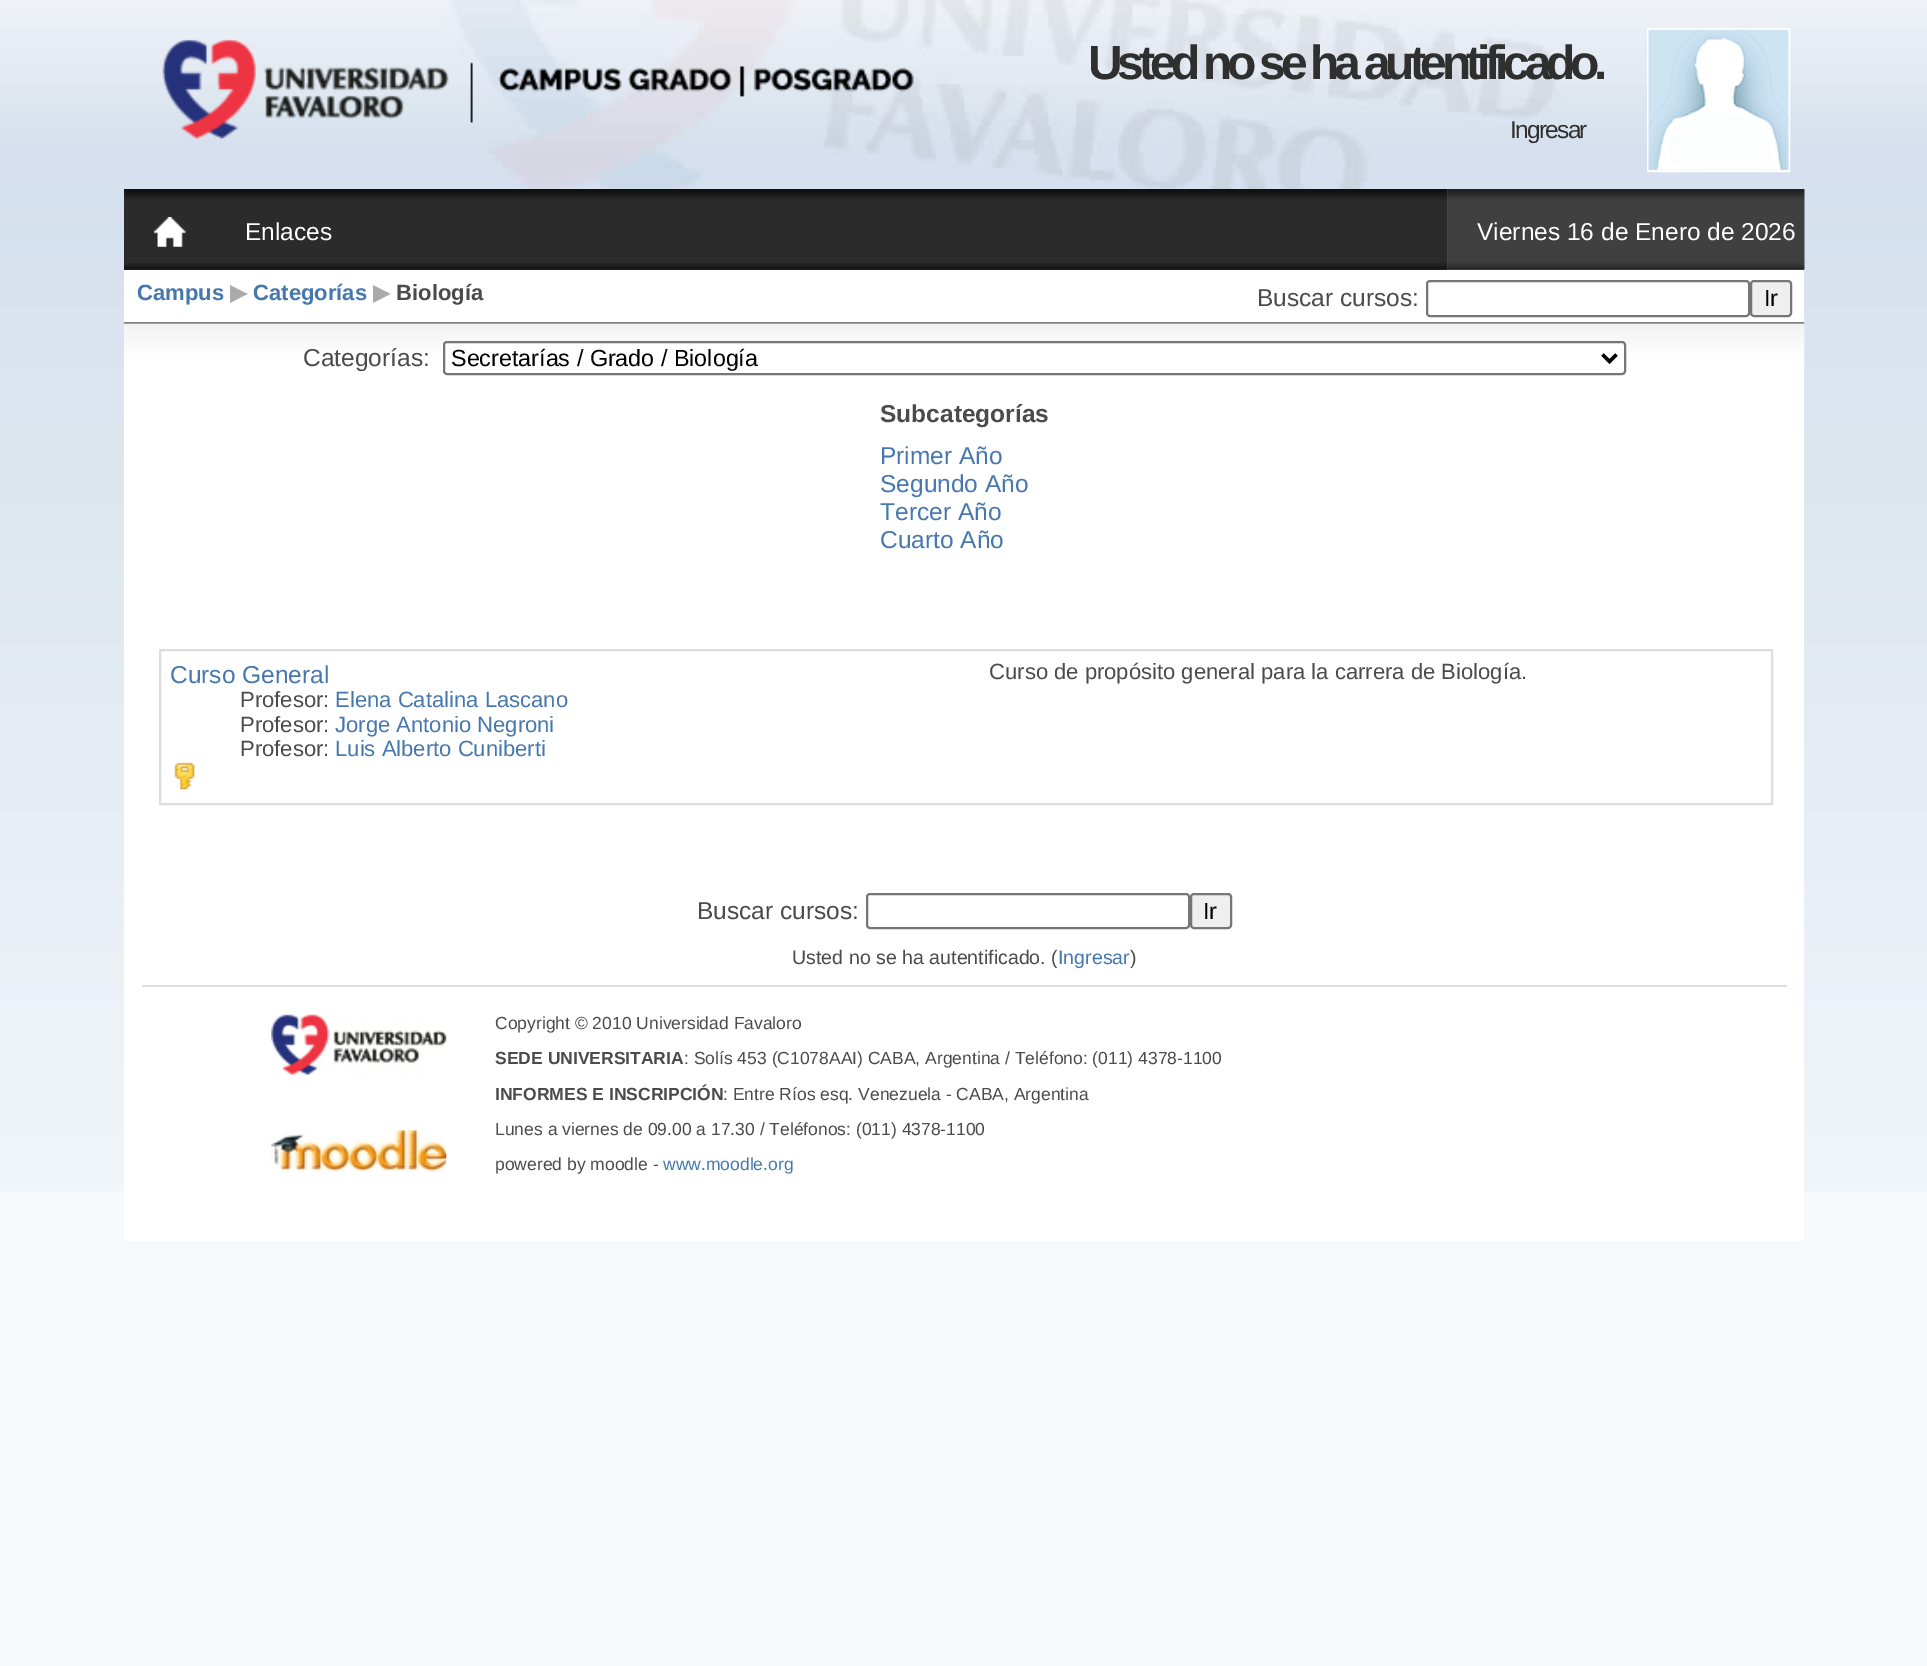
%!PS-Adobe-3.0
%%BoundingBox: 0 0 1927 1666
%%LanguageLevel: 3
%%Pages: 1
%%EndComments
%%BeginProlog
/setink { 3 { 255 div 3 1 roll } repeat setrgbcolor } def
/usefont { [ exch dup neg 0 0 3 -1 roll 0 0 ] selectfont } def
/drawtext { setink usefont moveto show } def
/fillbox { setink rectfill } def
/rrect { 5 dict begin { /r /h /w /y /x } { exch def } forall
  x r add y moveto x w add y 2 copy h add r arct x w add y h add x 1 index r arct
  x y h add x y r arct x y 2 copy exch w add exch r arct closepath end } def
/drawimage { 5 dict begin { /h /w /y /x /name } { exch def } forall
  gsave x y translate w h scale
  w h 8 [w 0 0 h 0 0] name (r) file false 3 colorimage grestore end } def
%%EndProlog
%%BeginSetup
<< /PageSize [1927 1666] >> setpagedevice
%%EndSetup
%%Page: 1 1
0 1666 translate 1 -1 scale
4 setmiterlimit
0 0 1927 1666 245 249 252 fillbox
(assets/img1.rgb) 0 0 1927 1191 drawimage
(assets/img2.rgb) 162 39 752 100 drawimage
/LiberationSans-Bold 48 usefont
47 47 47 setink
1088 79 moveto -5.25 0 (Usted no se ha autentificado.) ashow
255 255 255 setink
2 setlinewidth
1648 29 141 142 rectstroke
(assets/img3.rgb) 1648 29 141 141 drawimage
/LiberationSans-Regular 24.5 usefont
47 47 47 setink
1510 138 moveto -1.75 0 (Ingresar) ashow
124 189 1323 81 47 47 47 fillbox
(assets/img4.rgb) 124 189 1681 81 drawimage
(assets/img5.rgb) 154 217 32 30 drawimage
(Enlaces) 245 240 /LiberationSans-Regular 24.5 255 255 255 drawtext
1447 189 357 81 85 85 85 fillbox
(assets/img6.rgb) 1447 189 358 81 drawimage
(Viernes 16 de Enero de 2026) 1477 240 /LiberationSans-Regular 24.5 255 255 255 drawtext
124 270 1680 52 255 255 255 fillbox
124 322 1680 2 128 128 128 fillbox
(Campus) 137 300 /LiberationSans-Bold 22.05 70 120 174 drawtext
(▶) 230 300 /DejaVuSans-Bold 22.05 170 170 170 drawtext
(Categorías) 253 300 /LiberationSans-Bold 22.05 70 120 174 drawtext
(▶) 373 300 /DejaVuSans-Bold 22.05 170 170 170 drawtext
(Biología) 396 300 /LiberationSans-Bold 22.05 75 75 75 drawtext
(Buscar cursos:) 1257 306 /LiberationSans-Regular 24.5 75 75 75 drawtext
118 118 118 setink
1427 281 322 35 3 rrect stroke
239 239 239 setink
1751 281 40 35 3 rrect gsave fill grestore
118 118 118 setink
stroke
(Ir) 1764 306 /LiberationSans-Regular 23.3 0 0 0 drawtext
124 324 1680 917 255 255 255 fillbox
(assets/img7.rgb) 124 323 1681 46 drawimage
(Categorías:) 303 366 /LiberationSans-Regular 24.5 75 75 75 drawtext
255 255 255 setink
444 342 1181 32 3 rrect gsave fill grestore
118 118 118 setink
stroke
0 0 0 setink
3.5 setlinewidth
1602.5 354.5 moveto 1609.5 361.5 lineto 1616.5 354.5 lineto stroke
(Secretarías / Grado / Biología) 451 366 /LiberationSans-Regular 23.3 0 0 0 drawtext
(Subcategorías) 880 422 /LiberationSans-Bold 24.5 75 75 75 drawtext
(Primer Año) 880 464 /LiberationSans-Regular 24.5 70 120 174 drawtext
(Segundo Año) 880 492 /LiberationSans-Regular 24.5 70 120 174 drawtext
(Tercer Año) 880 520 /LiberationSans-Regular 24.5 70 120 174 drawtext
(Cuarto Año) 880 548 /LiberationSans-Regular 24.5 70 120 174 drawtext
221 221 221 setink
2 setlinewidth
160 650 1612 154 rectstroke
(Curso General) 170 683 /LiberationSans-Regular 24.5 70 120 174 drawtext
(Profesor:) 240 707 /LiberationSans-Regular 22.05 75 75 75 drawtext
(Elena Catalina Lascano) 335 707 /LiberationSans-Regular 22.05 70 120 174 drawtext
(Profesor:) 240 732 /LiberationSans-Regular 22.05 75 75 75 drawtext
(Jorge Antonio Negroni) 335 732 /LiberationSans-Regular 22.05 70 120 174 drawtext
(Profesor:) 240 756 /LiberationSans-Regular 22.05 75 75 75 drawtext
(Luis Alberto Cuniberti) 335 756 /LiberationSans-Regular 22.05 70 120 174 drawtext
(assets/img8.rgb) 174 762 21 28 drawimage
(Curso de propósito general para la carrera de Biología.) 989 679 /LiberationSans-Regular 22.05 75 75 75 drawtext
(Buscar cursos:) 697 919 /LiberationSans-Regular 24.5 75 75 75 drawtext
118 118 118 setink
867 894 322 34 3 rrect stroke
239 239 239 setink
1191 894 40 34 3 rrect gsave fill grestore
118 118 118 setink
stroke
(Ir) 1203 919 /LiberationSans-Regular 23.3 0 0 0 drawtext
142 985 1645 2 221 221 221 fillbox
(Usted no se ha autentificado. \() 792 964 /LiberationSans-Regular 19.6 75 75 75 drawtext
(Ingresar) 1058 964 /LiberationSans-Regular 19.6 70 120 174 drawtext
(\)) 1130 964 /LiberationSans-Regular 19.6 75 75 75 drawtext
(assets/img9.rgb) 271 1014 176 61 drawimage
(assets/img10.rgb) 271 1129 176 43 drawimage
(Copyright © 2010 Universidad Favaloro) 495 1029 /LiberationSans-Regular 17.5 75 75 75 drawtext
(SEDE UNIVERSITARIA) 495 1064 /LiberationSans-Bold 17.5 75 75 75 drawtext
(: Solís 453 \(C1078AAI\) CABA, Argentina / Teléfono: \(011\) 4378-1100) 684 1064 /LiberationSans-Regular 17.5 75 75 75 drawtext
(INFORMES E INSCRIPCIÓN) 495 1100 /LiberationSans-Bold 17.5 75 75 75 drawtext
(: Entre Ríos esq. Venezuela - CABA, Argentina) 723 1100 /LiberationSans-Regular 17.5 75 75 75 drawtext
(Lunes a viernes de 09.00 a 17.30 / Teléfonos: \(011\) 4378-1100) 495 1135 /LiberationSans-Regular 17.5 75 75 75 drawtext
(powered by moodle -) 495 1170 /LiberationSans-Regular 17.5 75 75 75 drawtext
(www.moodle.org) 663 1170 /LiberationSans-Regular 17.5 70 120 174 drawtext
showpage
%%EOF
